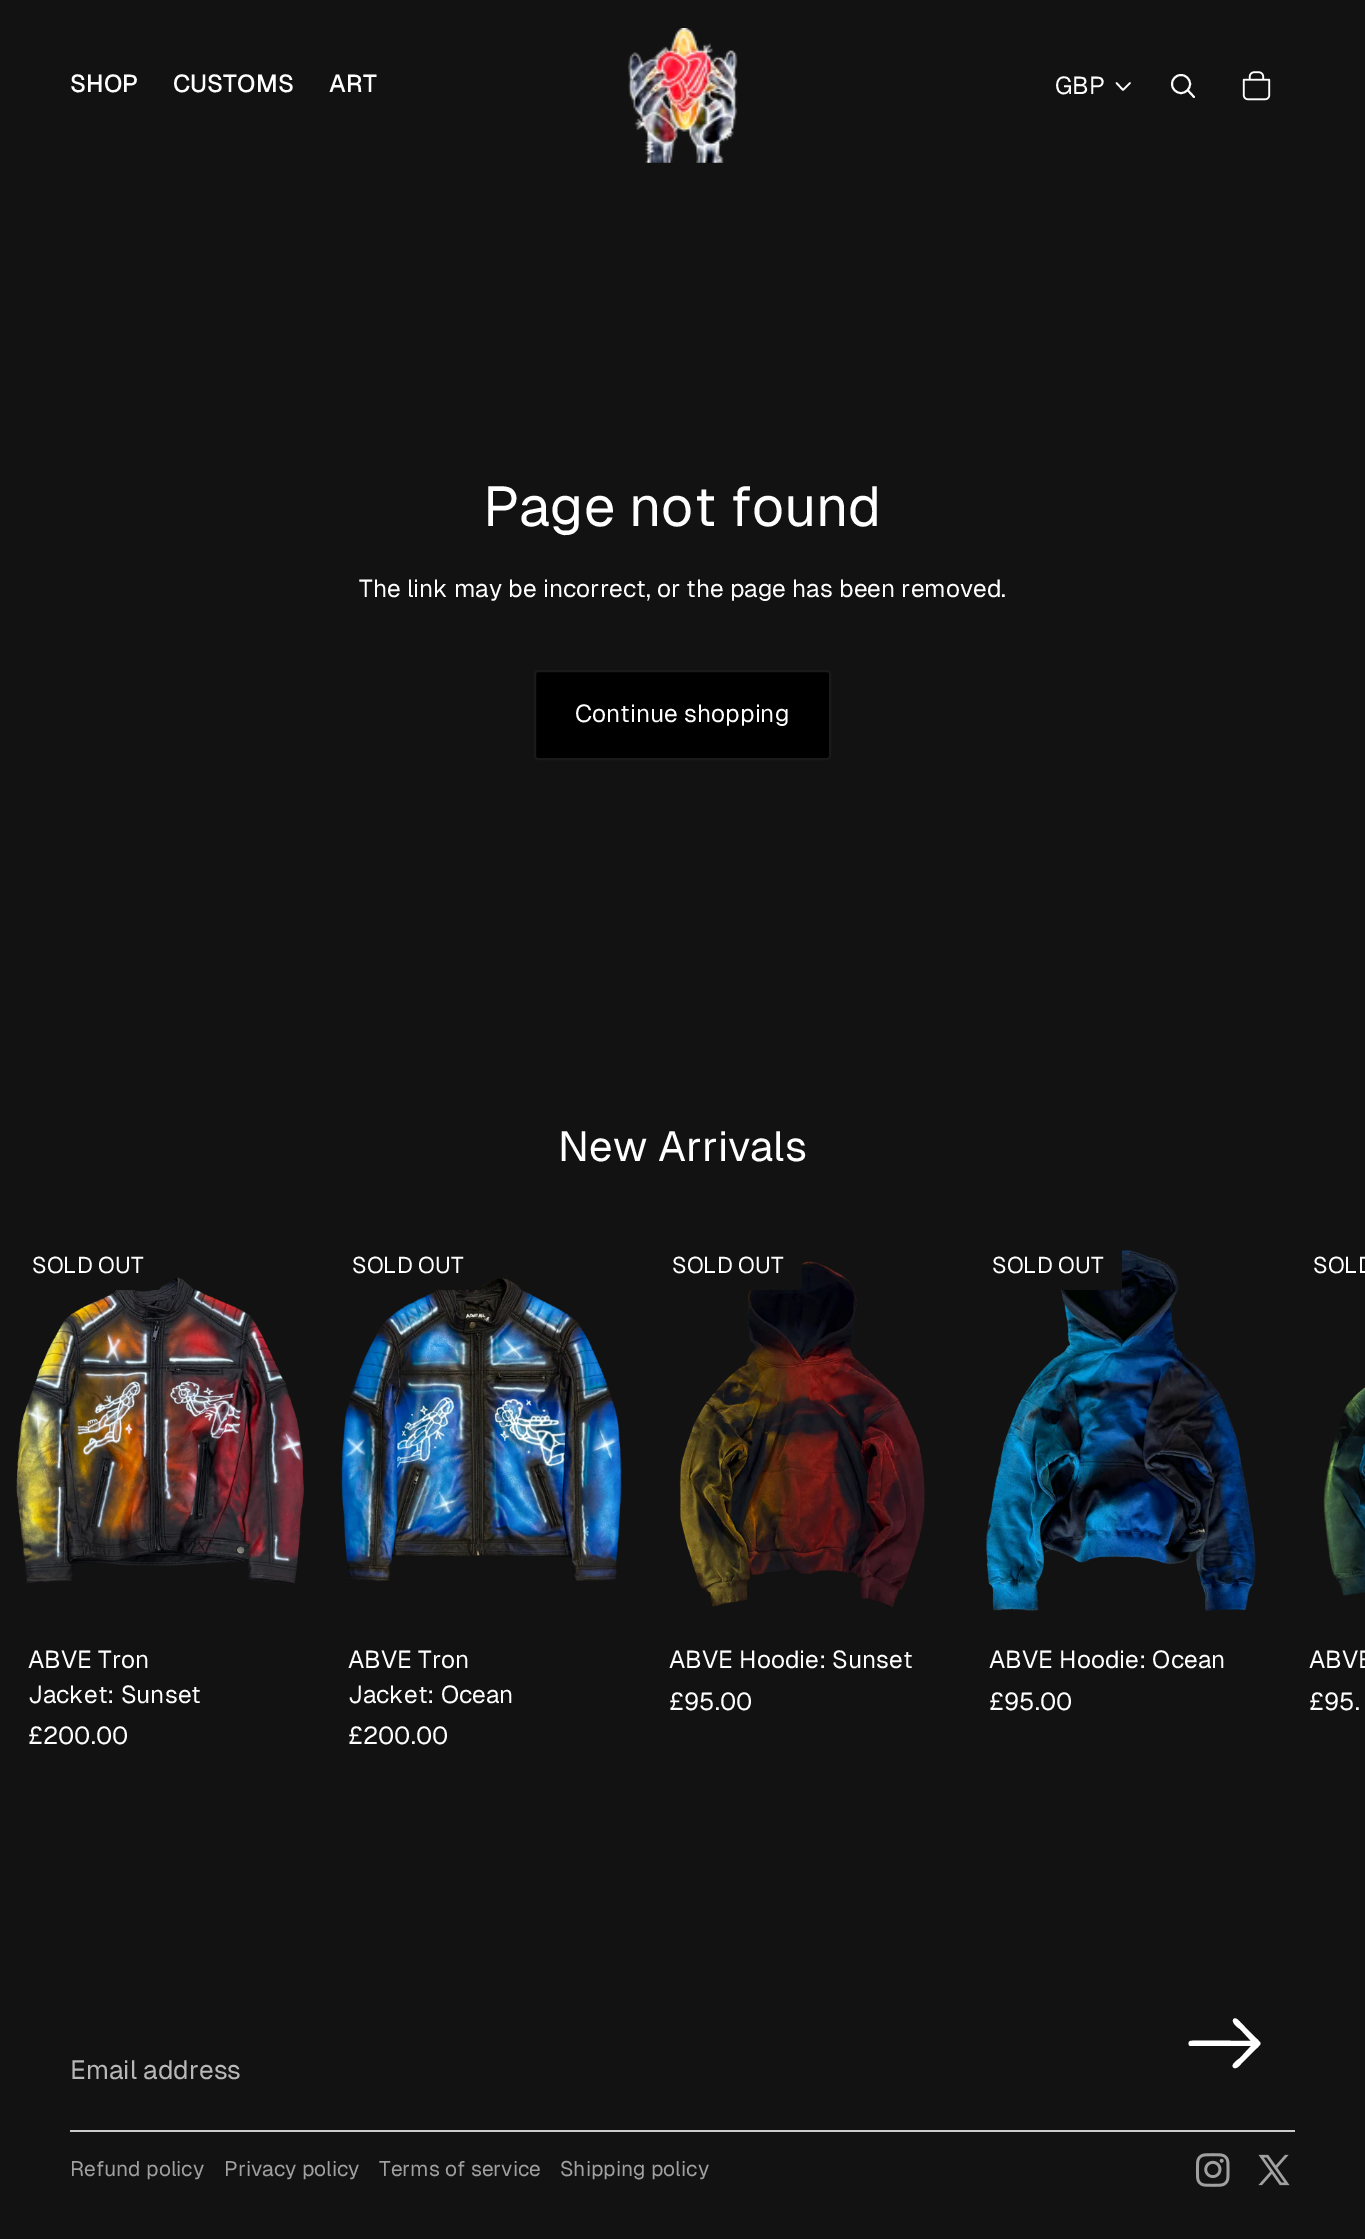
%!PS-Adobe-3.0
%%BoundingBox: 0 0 1365 2239
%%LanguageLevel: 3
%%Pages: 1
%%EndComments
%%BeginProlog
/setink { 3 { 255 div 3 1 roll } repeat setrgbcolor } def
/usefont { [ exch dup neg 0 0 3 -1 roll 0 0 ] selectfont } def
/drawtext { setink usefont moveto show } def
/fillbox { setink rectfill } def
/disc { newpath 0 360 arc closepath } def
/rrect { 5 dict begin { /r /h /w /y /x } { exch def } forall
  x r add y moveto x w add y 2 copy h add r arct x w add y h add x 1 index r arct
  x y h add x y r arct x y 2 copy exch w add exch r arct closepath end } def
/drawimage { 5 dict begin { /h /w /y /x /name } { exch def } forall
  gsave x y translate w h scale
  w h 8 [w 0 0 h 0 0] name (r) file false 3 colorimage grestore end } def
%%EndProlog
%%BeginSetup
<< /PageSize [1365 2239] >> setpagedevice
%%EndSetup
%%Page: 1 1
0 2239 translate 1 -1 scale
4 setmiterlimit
0 0 1365 2239 18 18 18 fillbox
(SHOP) 70 92 /Geist-Medium 24.5 255 255 255 drawtext
(CUSTOMS) 173 92 /Geist-Medium 24.5 255 255 255 drawtext
(ART) 329 92 /Geist-Medium 24.5 255 255 255 drawtext
(assets/img1.rgb) 628 28 110 135 drawimage
(GBP) 1055 94 /Geist-Regular 24.5 255 255 255 drawtext
1.7 setlinewidth
1 setlinecap
1 setlinejoin
1130 83 moveto 1123 90 lineto 1116.5 83 lineto stroke
1.9 setlinewidth
0 setlinecap
0 setlinejoin
1181 84 9 disc stroke
1 setlinecap
1 setlinejoin
1188 90.5 moveto 1194 97 lineto stroke
(assets/img2.rgb) 1242 71 29 30 drawimage
(Page not found) 483 526 /Geist-Regular 56 255 255 255 drawtext
(The link may be incorrect, or the page has been removed.) 359 597 /Geist-Regular 24.5 255 255 255 drawtext
0 0 0 setink
535 671 295 88 3 rrect gsave fill grestore
26 26 26 setink
2 setlinewidth
0 setlinecap
0 setlinejoin
stroke
(Continue shopping) 575 722 /Geist-Regular 24.5 255 255 255 drawtext
(New Arrivals) 558 1161 /Geist-Regular 42 255 255 255 drawtext
(assets/img3.rgb) 16 1277 288 307 drawimage
18 18 18 setink
14 1244 147 46 4 rrect fill
(SOLD OUT) 32 1273 /Geist-Regular 22.75 255 255 255 drawtext
(ABVE Tron) 28 1668 /Geist-Regular 24.5 255 255 255 drawtext
(Jacket: Sunset) 28 1703 /Geist-Regular 24.5 255 255 255 drawtext
(£200.00) 28 1744 /Geist-Regular 24.5 255 255 255 drawtext
(assets/img4.rgb) 341 1277 281 304 drawimage
18 18 18 setink
334 1244 147 46 4 rrect fill
(SOLD OUT) 352 1273 /Geist-Regular 22.75 255 255 255 drawtext
(ABVE Tron) 348 1668 /Geist-Regular 24.5 255 255 255 drawtext
(Jacket: Ocean) 348 1703 /Geist-Regular 24.5 255 255 255 drawtext
(£200.00) 348 1744 /Geist-Regular 24.5 255 255 255 drawtext
(assets/img5.rgb) 679 1261 246 347 drawimage
18 18 18 setink
655 1244 147 46 4 rrect fill
(SOLD OUT) 672 1273 /Geist-Regular 22.75 255 255 255 drawtext
(ABVE Hoodie: Sunset) 669 1668 /Geist-Regular 24.5 255 255 255 drawtext
(£95.00) 669 1710 /Geist-Regular 24.5 255 255 255 drawtext
(assets/img6.rgb) 986 1250 270 361 drawimage
18 18 18 setink
975 1244 147 46 4 rrect fill
(SOLD OUT) 992 1273 /Geist-Regular 22.75 255 255 255 drawtext
(ABVE Hoodie: Ocean) 989 1668 /Geist-Regular 24.5 255 255 255 drawtext
(£95.00) 989 1710 /Geist-Regular 24.5 255 255 255 drawtext
(SOLD) 1313 1273 /Geist-Regular 22.75 255 255 255 drawtext
(assets/img7.rgb) 1323 1387 42 209 drawimage
(ABVE) 1309 1668 /Geist-Regular 24.5 255 255 255 drawtext
(£95.) 1309 1710 /Geist-Regular 24.5 255 255 255 drawtext
70 2130 1225 2 204 204 204 fillbox
(Email address) 70 2079 /Geist-Regular 26.25 184 184 184 drawtext
255 255 255 setink
1233 2020 moveto 1235 2015 1240 2022 1245 2027 curveto 1256 2038 lineto 1262 2044 1262 2043 1256 2049 curveto 1241 2064 lineto 1240 2065 1237 2069 1234 2068 curveto 1229 2065 1239 2059 1240 2058 curveto 1251 2046 lineto 1190 2046 lineto 1188 2045 1188 2042 1190 2041 curveto 1192 2040 1244 2041 1251 2041 curveto 1240 2029 lineto 1238 2028 1232 2023 1233 2020 curveto closepath eofill
(Refund policy) 70 2176 /Geist-Regular 21 160 160 160 drawtext
(Privacy policy) 224 2176 /Geist-Regular 21 160 160 160 drawtext
(Terms of service) 379 2176 /Geist-Regular 21 160 160 160 drawtext
(Shipping policy) 560 2176 /Geist-Regular 21 160 160 160 drawtext
(assets/img8.rgb) 1195 2153 35 34 drawimage
(assets/img9.rgb) 1258 2154 32 32 drawimage
showpage
%%EOF
